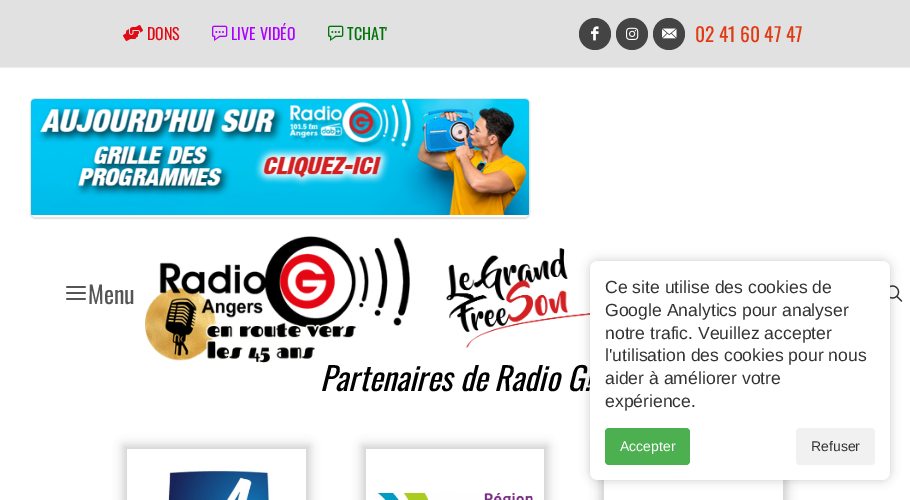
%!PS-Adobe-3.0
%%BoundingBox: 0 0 910 500
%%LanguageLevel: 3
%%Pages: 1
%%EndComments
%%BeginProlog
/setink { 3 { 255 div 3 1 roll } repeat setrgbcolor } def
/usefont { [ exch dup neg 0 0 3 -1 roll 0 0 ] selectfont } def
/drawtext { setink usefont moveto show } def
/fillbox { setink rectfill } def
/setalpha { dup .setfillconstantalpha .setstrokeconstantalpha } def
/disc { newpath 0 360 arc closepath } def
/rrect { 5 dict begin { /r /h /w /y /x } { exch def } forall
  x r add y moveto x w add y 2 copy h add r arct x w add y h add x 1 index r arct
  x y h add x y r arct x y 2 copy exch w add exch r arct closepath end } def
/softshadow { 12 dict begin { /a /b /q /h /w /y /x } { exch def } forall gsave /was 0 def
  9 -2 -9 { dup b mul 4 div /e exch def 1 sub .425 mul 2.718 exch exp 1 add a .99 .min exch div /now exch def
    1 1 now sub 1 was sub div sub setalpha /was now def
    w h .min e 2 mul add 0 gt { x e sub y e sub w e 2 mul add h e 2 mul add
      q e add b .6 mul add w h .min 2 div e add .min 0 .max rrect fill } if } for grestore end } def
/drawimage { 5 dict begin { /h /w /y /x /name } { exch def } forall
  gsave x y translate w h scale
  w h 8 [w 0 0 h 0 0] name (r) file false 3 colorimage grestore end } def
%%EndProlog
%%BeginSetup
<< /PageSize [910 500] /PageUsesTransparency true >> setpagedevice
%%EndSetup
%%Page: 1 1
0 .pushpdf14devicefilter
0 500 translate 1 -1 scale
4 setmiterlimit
0 0 910 500 255 255 255 fillbox
0 0 910 67 225 225 225 fillbox
0 67 910 1 238 238 238 fillbox
(assets/img1.rgb) 123 25 20 16 drawimage
(DONS) 147 40 /Oswald-Regular 16 227 11 19 drawtext
(assets/img2.rgb) 212 25 16 16 drawimage
(LIVE VIDÉO) 231 40 /Oswald-Regular 16 174 0 255 drawtext
(assets/img3.rgb) 328 25 16 16 drawimage
(TCHAT') 347 40 /Oswald-Regular 16 0 115 9 drawtext
68 68 68 setink
595 34 16 disc fill
(assets/img4.rgb) 591 26 8 15 drawimage
632 34 16 disc fill
(assets/img5.rgb) 626 27 13 13 drawimage
669 34 16 disc fill
(assets/img6.rgb) 662 28 15 11 drawimage
(02 41 60 47 47) 695 42 /Oswald-Regular 19.5 224 59 19 drawtext
0 0 0 setink
30 99 500 120 5 0.5 0.1 softshadow
255 255 255 setink
30 98 500 120 5 rrect fill
0.1 setalpha
0 0 0 setink
30.5 98.5 499 119 4.5 rrect stroke
1 setalpha
(assets/img7.rgb) 31 99 498 116 drawimage
(assets/img8.rgb) 66 286 20 14 drawimage
(Menu) 88 304 /Oswald-Regular 24 85 85 85 drawtext
(assets/img9.rgb) 145 236 265 128 drawimage
(assets/img10.rgb) 446 248 144 100 drawimage
(assets/img11.rgb) 890 285 13 17 drawimage
(Partenaires de Radio G!) 320 391 /Oswald-Italic 32 0 0 0 drawtext
gsave
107 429 moveto 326 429 lineto 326 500 lineto 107 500 lineto closepath 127 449 moveto 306 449 lineto 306 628 lineto 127 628 lineto closepath eoclip newpath
189 189 189 setink
123 445 187 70 0 5 0.75 softshadow
grestore
(assets/img12.rgb) 167 469 103 31 drawimage
gsave
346 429 moveto 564 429 lineto 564 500 lineto 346 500 lineto closepath 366 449 moveto 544 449 lineto 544 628 lineto 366 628 lineto closepath eoclip newpath
189 189 189 setink
362 445 186 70 0 5 0.75 softshadow
grestore
(assets/img13.rgb) 377 492 156 8 drawimage
gsave
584 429 moveto 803 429 lineto 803 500 lineto 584 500 lineto closepath 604 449 moveto 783 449 lineto 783 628 lineto 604 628 lineto closepath eoclip newpath
189 189 189 setink
600 445 187 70 0 5 0.75 softshadow
grestore
590 261 300 219 8 5 0.2 softshadow
255 255 255 setink
590 261 300 219 8 rrect fill
(Ce site utilise des cookies de) 605 293 /LiberationSans-Regular 17.6 51 51 51 drawtext
(Google Analytics pour analyser) 605 316 /LiberationSans-Regular 17.6 51 51 51 drawtext
(notre trafic. Veuillez accepter) 605 339 /LiberationSans-Regular 17.6 51 51 51 drawtext
(l'utilisation des cookies pour nous) 605 361 /LiberationSans-Regular 17.6 51 51 51 drawtext
(aider à améliorer votre) 605 384 /LiberationSans-Regular 17.6 51 51 51 drawtext
(expérience.) 605 407 /LiberationSans-Regular 17.6 51 51 51 drawtext
76 175 80 setink
605 428 85 37 4 rrect fill
(Accepter) 620 451 /LiberationSans-Regular 14 255 255 255 drawtext
241 241 241 setink
796 428 79 37 4 rrect fill
(Refuser) 811 451 /LiberationSans-Regular 14 51 51 51 drawtext
.poppdf14devicefilter showpage
%%EOF
